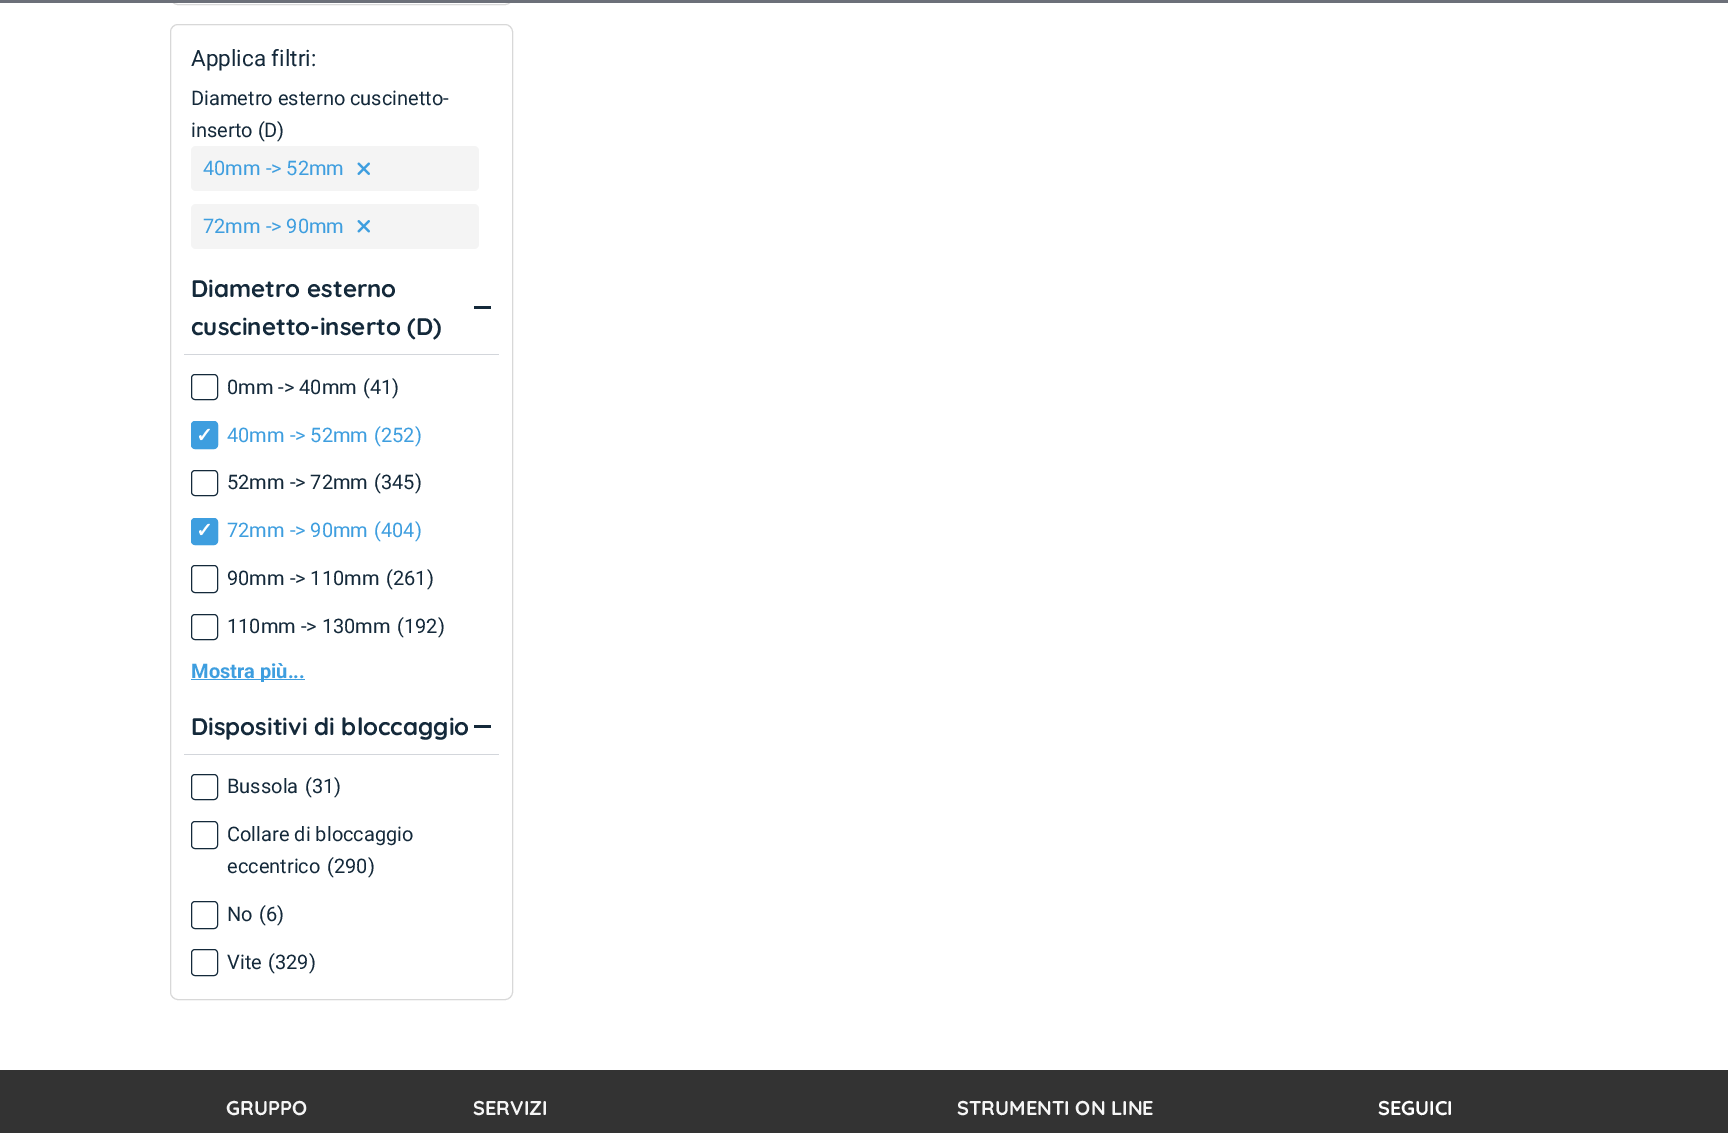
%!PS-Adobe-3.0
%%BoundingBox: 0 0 1728 1133
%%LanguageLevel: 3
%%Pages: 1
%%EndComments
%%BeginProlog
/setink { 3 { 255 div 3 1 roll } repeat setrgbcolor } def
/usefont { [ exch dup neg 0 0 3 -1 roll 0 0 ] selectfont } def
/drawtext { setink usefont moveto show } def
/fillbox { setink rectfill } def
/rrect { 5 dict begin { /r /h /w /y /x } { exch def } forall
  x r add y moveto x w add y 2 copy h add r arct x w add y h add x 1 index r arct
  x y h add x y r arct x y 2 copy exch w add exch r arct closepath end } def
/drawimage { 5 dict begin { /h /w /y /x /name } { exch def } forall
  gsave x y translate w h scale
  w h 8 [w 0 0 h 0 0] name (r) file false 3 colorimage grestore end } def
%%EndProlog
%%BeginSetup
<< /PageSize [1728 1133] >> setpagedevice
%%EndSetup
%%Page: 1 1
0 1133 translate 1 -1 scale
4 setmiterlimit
0 0 1728 1133 255 255 255 fillbox
216 216 216 setink
170.5 -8.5 342 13 7.5 rrect stroke
0 0 1728 3 108 112 121 fillbox
216 216 216 setink
170.5 24.5 342 975 7.5 rrect stroke
(Applica filtri:) 191 66 /Roboto-Regular 22.5 20 41 58 drawtext
(Diametro esterno cuscinetto-) 191 105 /Roboto-Regular 20 20 41 58 drawtext
(inserto \(D\)) 191 137 /Roboto-Regular 20 20 41 58 drawtext
244 244 244 setink
191 146 288 45 5 rrect fill
(40mm -> 52mm) 203 175 /Roboto-Regular 20 62 158 223 drawtext
(assets/img1.rgb) 357 162 13 13 drawimage
244 244 244 setink
191 204 288 45 5 rrect fill
(72mm -> 90mm) 203 233 /Roboto-Regular 20 62 158 223 drawtext
(assets/img2.rgb) 357 220 13 13 drawimage
184 354 315 1 211 214 219 fillbox
(Diametro esterno) 191 297 /Quicksand-Bold 24 20 41 58 drawtext
(cuscinetto-inserto \(D\)) 191 335 /Quicksand-Bold 24 20 41 58 drawtext
474 306 17 3 20 41 58 fillbox
191.5 374.5 26 25 3.5 rrect stroke
(0mm -> 40mm) 227 394 /Roboto-Regular 20 20 41 58 drawtext
(\(41\)) 363 394 /Roboto-Regular 20 20 41 58 drawtext
62 158 223 setink
191.5 421.5 26 27 3.5 rrect gsave fill grestore
stroke
(✓) 196 442 /DejaVuSans-Bold 20 255 255 255 drawtext
(40mm -> 52mm) 227 442 /Roboto-Regular 20 62 158 223 drawtext
(\(252\)) 374 442 /Roboto-Regular 20 62 158 223 drawtext
20 41 58 setink
191.5 470.5 26 25 3.5 rrect stroke
(52mm -> 72mm) 227 489 /Roboto-Regular 20 20 41 58 drawtext
(\(345\)) 374 489 /Roboto-Regular 20 20 41 58 drawtext
62 158 223 setink
191.5 518.5 26 26 3.5 rrect gsave fill grestore
stroke
(✓) 196 537 /DejaVuSans-Bold 20 255 255 255 drawtext
(72mm -> 90mm) 227 537 /Roboto-Regular 20 62 158 223 drawtext
(\(404\)) 374 537 /Roboto-Regular 20 62 158 223 drawtext
20 41 58 setink
191.5 565.5 26 27 3.5 rrect stroke
(90mm -> 110mm) 227 585 /Roboto-Regular 20 20 41 58 drawtext
(\(261\)) 386 585 /Roboto-Regular 20 20 41 58 drawtext
191.5 614.5 26 25 3.5 rrect stroke
(110mm -> 130mm) 227 633 /Roboto-Regular 20 20 41 58 drawtext
(\(192\)) 397 633 /Roboto-Regular 20 20 41 58 drawtext
191 679 114 1 62 158 223 fillbox
(Mostra più...) 191 678 /Roboto-Bold 20 62 158 223 drawtext
184 754 315 1 211 214 219 fillbox
(Dispositivi di bloccaggio) 191 735 /Quicksand-Bold 24 20 41 58 drawtext
474 725 17 3 20 41 58 fillbox
191.5 774.5 26 25 3.5 rrect stroke
(Bussola) 227 793 /Roboto-Regular 20 20 41 58 drawtext
(\(31\)) 305 793 /Roboto-Regular 20 20 41 58 drawtext
191.5 821.5 26 27 3.5 rrect stroke
(Collare di bloccaggio) 227 841 /Roboto-Regular 20 20 41 58 drawtext
(eccentrico) 227 873 /Roboto-Regular 20 20 41 58 drawtext
(\(290\)) 327 873 /Roboto-Regular 20 20 41 58 drawtext
191.5 901.5 26 27 3.5 rrect stroke
(No) 227 921 /Roboto-Regular 20 20 41 58 drawtext
(\(6\)) 259 921 /Roboto-Regular 20 20 41 58 drawtext
191.5 949.5 26 26 3.5 rrect stroke
(Vite) 227 969 /Roboto-Regular 20 20 41 58 drawtext
(\(329\)) 268 969 /Roboto-Regular 20 20 41 58 drawtext
0 1070 1728 63 51 51 51 fillbox
(GRUPPO) 226 1115 /Quicksand-Bold 20 246 246 246 drawtext
(SERVIZI) 473 1115 /Quicksand-Bold 20 246 246 246 drawtext
(STRUMENTI ON LINE) 957 1115 /Quicksand-Bold 20 246 246 246 drawtext
(SEGUICI) 1378 1115 /Quicksand-Bold 20 255 255 255 drawtext
showpage
%%EOF
